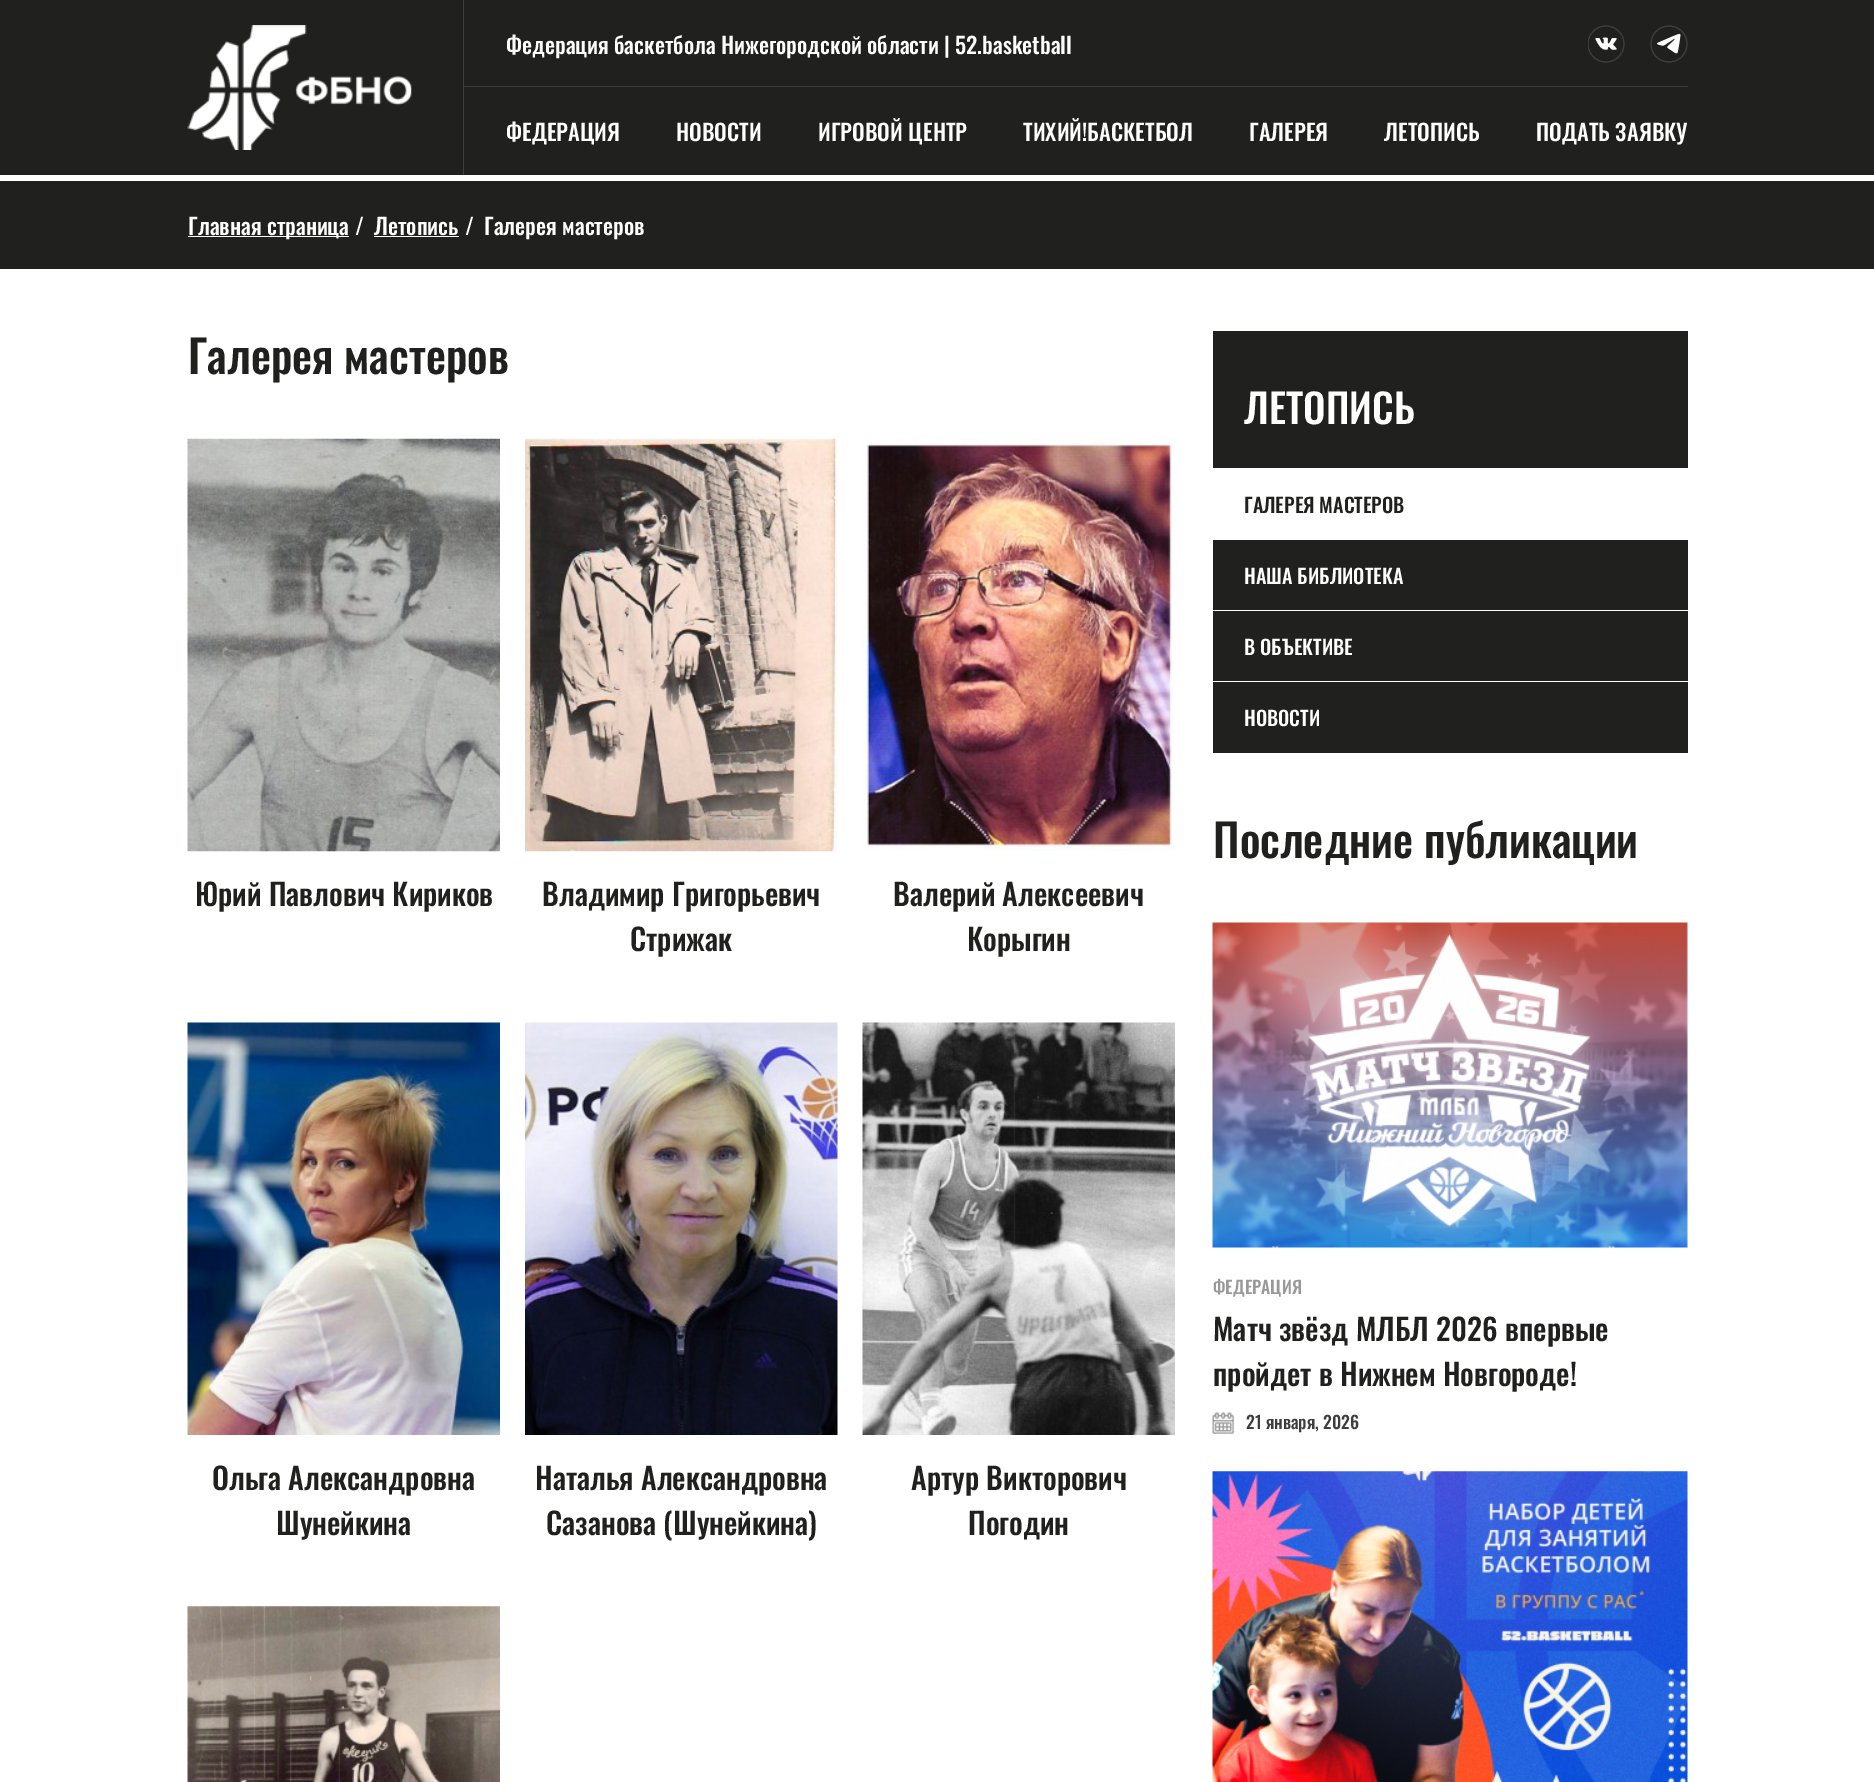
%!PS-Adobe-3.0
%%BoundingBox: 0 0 1874 1782
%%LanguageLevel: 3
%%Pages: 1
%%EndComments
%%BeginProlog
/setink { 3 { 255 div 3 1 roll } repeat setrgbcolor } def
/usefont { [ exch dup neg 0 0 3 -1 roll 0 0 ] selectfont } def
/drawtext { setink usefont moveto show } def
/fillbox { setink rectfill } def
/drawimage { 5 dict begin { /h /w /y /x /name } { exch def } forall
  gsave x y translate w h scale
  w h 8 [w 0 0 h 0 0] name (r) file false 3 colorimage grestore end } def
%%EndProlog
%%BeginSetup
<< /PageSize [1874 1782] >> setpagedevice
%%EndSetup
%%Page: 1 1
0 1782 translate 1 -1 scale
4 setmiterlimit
0 0 1874 1782 255 255 255 fillbox
0 0 1874 175 32 32 30 fillbox
463 0 1 175 62 62 62 fillbox
(assets/img1.rgb) 187 25 225 125 drawimage
(Федерация баскетбола Нижегородской области | 52.basketball) 506 54 /Oswald-Medium 22.5 255 255 255 drawtext
(assets/img2.rgb) 1588 25 37 38 drawimage
(assets/img3.rgb) 1650 25 38 38 drawimage
463 86 1225 1 62 62 62 fillbox
(ФЕДЕРАЦИЯ) 506 141 /Oswald-Medium 22.5 255 255 255 drawtext
(НОВОСТИ) 676 141 /Oswald-Medium 22.5 255 255 255 drawtext
(ИГРОВОЙ ЦЕНТР) 818 141 /Oswald-Medium 22.5 255 255 255 drawtext
(ТИХИЙ!БАСКЕТБОЛ) 1023 141 /Oswald-Medium 22.5 255 255 255 drawtext
(ГАЛЕРЕЯ) 1249 141 /Oswald-Medium 22.5 255 255 255 drawtext
(ЛЕТОПИСЬ) 1384 141 /Oswald-Medium 22.5 255 255 255 drawtext
(ПОДАТЬ ЗАЯВКУ) 1536 141 /Oswald-Medium 22.5 255 255 255 drawtext
0 181 1874 88 32 32 30 fillbox
188 236 161 1 255 255 255 fillbox
(Главная страница) 188 235 /Oswald-Medium 22.5 255 255 255 drawtext
(/) 355 235 /Oswald-Medium 22.5 255 255 255 drawtext
(Летопись) 374 235 /Oswald-Medium 22.5 255 255 255 drawtext
374 236 85 1 255 255 255 fillbox
(/) 465 235 /Oswald-Medium 22.5 255 255 255 drawtext
(Галерея мастеров) 484 235 /Oswald-Medium 22.5 255 255 255 drawtext
(Галерея мастеров) 188 374 /Oswald-Medium 45 32 32 30 drawtext
(assets/img4.rgb) 187 438 313 414 drawimage
(Юрий Павлович Кириков) 195 906 /Oswald-Medium 30 32 32 30 drawtext
(assets/img5.rgb) 525 438 313 414 drawimage
(Владимир Григорьевич) 542 906 /Oswald-Medium 30 32 32 30 drawtext
(Стрижак) 630 951 /Oswald-Medium 30 32 32 30 drawtext
(assets/img6.rgb) 862 439 313 412 drawimage
(Валерий Алексеевич) 893 906 /Oswald-Medium 30 32 32 30 drawtext
(Корыгин) 967 951 /Oswald-Medium 30 32 32 30 drawtext
(assets/img7.rgb) 187 1022 313 413 drawimage
(Ольга Александровна) 212 1490 /Oswald-Medium 30 32 32 30 drawtext
(Шунейкина) 276 1535 /Oswald-Medium 30 32 32 30 drawtext
(assets/img8.rgb) 525 1022 313 413 drawimage
(Наталья Александровна) 535 1490 /Oswald-Medium 30 32 32 30 drawtext
(Сазанова \(Шунейкина\)) 546 1535 /Oswald-Medium 30 32 32 30 drawtext
(assets/img9.rgb) 862 1022 313 413 drawimage
(Артур Викторович) 911 1490 /Oswald-Medium 30 32 32 30 drawtext
(Погодин) 968 1535 /Oswald-Medium 30 32 32 30 drawtext
(assets/img10.rgb) 187 1606 313 176 drawimage
1213 331 475 422 32 32 30 fillbox
(ЛЕТОПИСЬ) 1244 424 /Oswald-Medium 40 255 255 255 drawtext
1213 468 475 72 255 255 255 fillbox
(ГАЛЕРЕЯ МАСТЕРОВ) 1244 513 /Oswald-Medium 20 32 32 30 drawtext
(НАША БИБЛИОТЕКА) 1244 584 /Oswald-Medium 20 255 255 255 drawtext
1213 610 475 1 255 255 255 fillbox
(В ОБЪЕКТИВЕ) 1244 655 /Oswald-Medium 20 255 255 255 drawtext
1213 681 475 1 255 255 255 fillbox
(НОВОСТИ) 1244 726 /Oswald-Medium 20 255 255 255 drawtext
(Последние публикации) 1213 858 /Oswald-Medium 45 32 32 30 drawtext
(assets/img11.rgb) 1212 922 476 326 drawimage
(ФЕДЕРАЦИЯ) 1213 1294 /Oswald-Medium 17.5 153 153 153 drawtext
(Матч звёзд МЛБЛ 2026 впервые) 1213 1341 /Oswald-Medium 30 32 32 30 drawtext
(пройдет в Нижнем Новгороде!) 1213 1386 /Oswald-Medium 30 32 32 30 drawtext
(assets/img12.rgb) 1212 1412 22 22 drawimage
(21 января, 2026) 1246 1429 /Oswald-Medium 17.5 62 62 62 drawtext
(assets/img13.rgb) 1212 1471 476 311 drawimage
showpage
%%EOF
